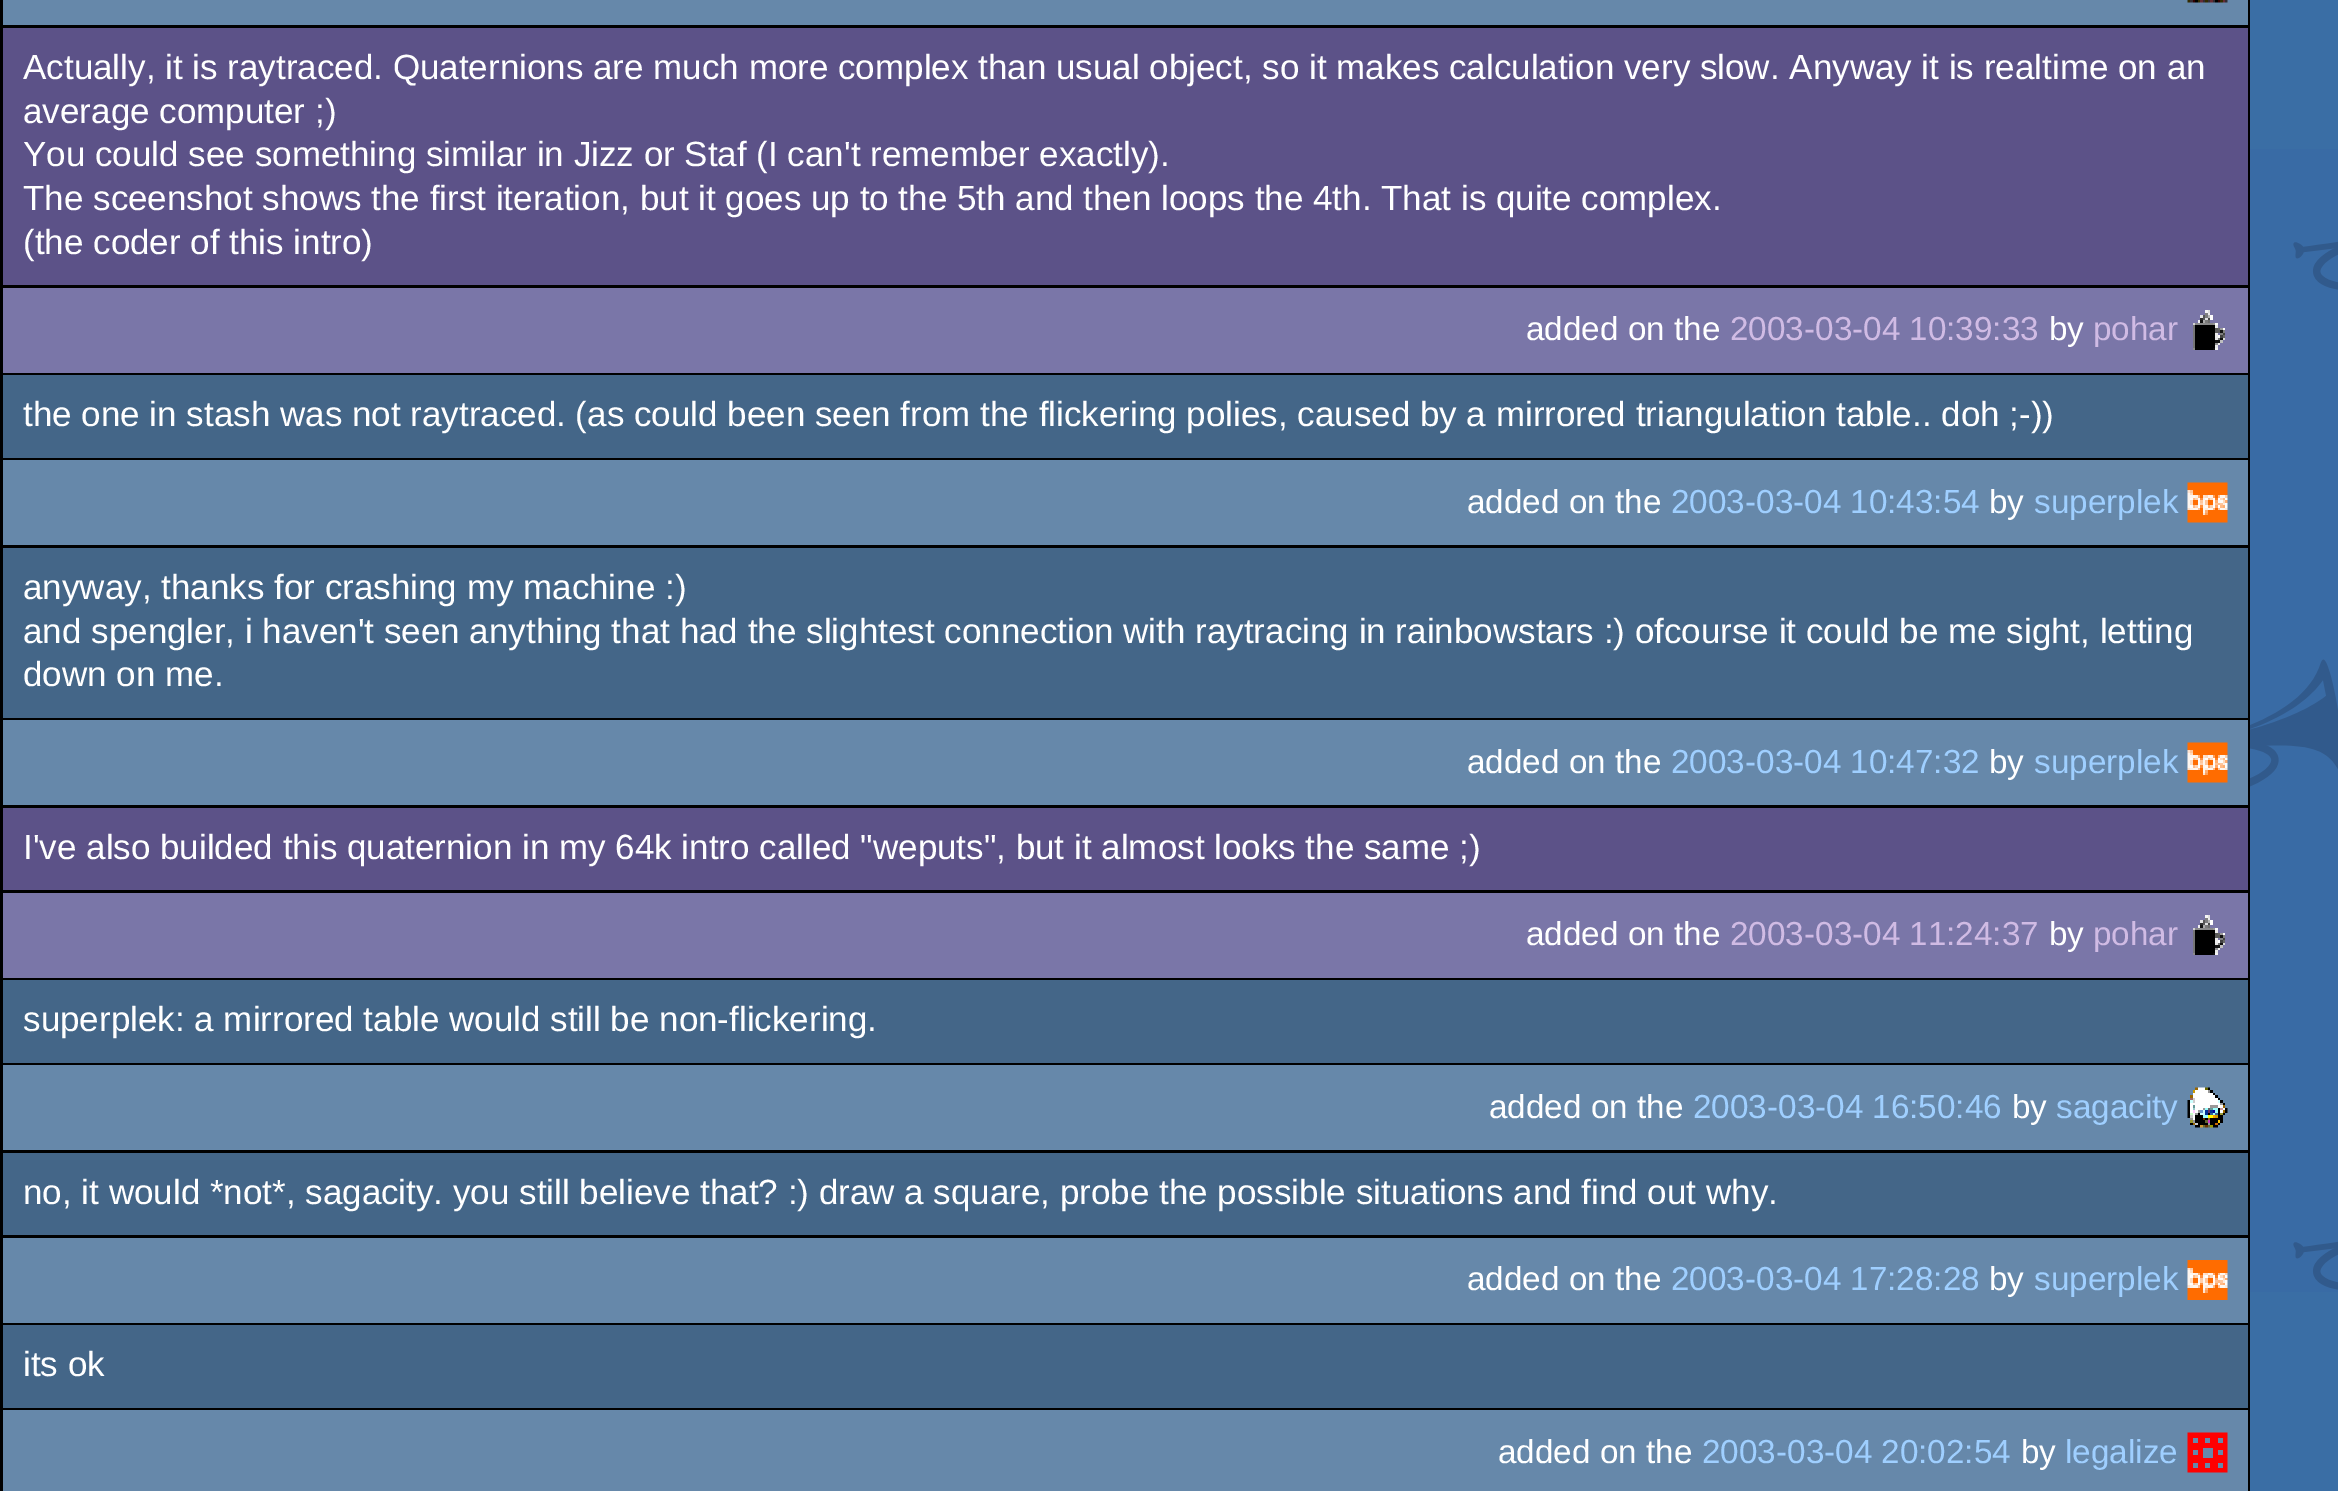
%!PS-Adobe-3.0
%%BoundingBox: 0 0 2338 1491
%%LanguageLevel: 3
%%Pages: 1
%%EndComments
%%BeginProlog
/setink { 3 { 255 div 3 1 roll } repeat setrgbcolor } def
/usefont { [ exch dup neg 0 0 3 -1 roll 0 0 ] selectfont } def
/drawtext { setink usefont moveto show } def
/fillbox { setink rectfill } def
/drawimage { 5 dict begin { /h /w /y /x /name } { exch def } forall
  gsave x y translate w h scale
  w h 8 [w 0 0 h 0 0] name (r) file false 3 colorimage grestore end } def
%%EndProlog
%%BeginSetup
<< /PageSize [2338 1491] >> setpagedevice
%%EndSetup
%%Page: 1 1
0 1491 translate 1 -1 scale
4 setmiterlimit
0 0 2338 1491 58 110 165 fillbox
(assets/img1.rgb) 2250 149 88 1143 drawimage
0 0 2250 1491 0 0 0 fillbox
3 0 2245 25 102 136 170 fillbox
(assets/img2.rgb) 2187 0 41 3 drawimage
3 28 2245 257 92 82 136 fillbox
(Actually, it is raytraced. Quaternions are much more complex than usual object, so it makes calculation very slow. Anyway it is realtime on an) 23 79 /LiberationSans-Regular 35 255 255 255 drawtext
(average computer ;\)) 23 123 /LiberationSans-Regular 35 255 255 255 drawtext
(You could see something similar in Jizz or Staf \(I can't remember exactly\).) 23 166 /LiberationSans-Regular 35 255 255 255 drawtext
(The sceenshot shows the first iteration, but it goes up to the 5th and then loops the 4th. That is quite complex.) 23 210 /LiberationSans-Regular 35 255 255 255 drawtext
(\(the coder of this intro\)) 23 254 /LiberationSans-Regular 35 255 255 255 drawtext
3 288 2245 85 122 118 168 fillbox
(added on the) 1526 340 /LiberationSans-Regular 33.25 255 255 255 drawtext
(2003-03-04 10:39:33) 1730 340 /LiberationSans-Regular 33.25 208 187 228 drawtext
(by) 2049 340 /LiberationSans-Regular 33.25 255 255 255 drawtext
(pohar) 2093 340 /LiberationSans-Regular 33.25 208 187 228 drawtext
(assets/img3.rgb) 2193 310 32 40 drawimage
3 375 2245 83 68 102 136 fillbox
(the one in stash was not raytraced. \(as could been seen from the flickering polies, caused by a mirrored triangulation table.. doh ;-\)\)) 23 426 /LiberationSans-Regular 35 255 255 255 drawtext
3 460 2245 85 102 136 170 fillbox
(added on the) 1467 513 /LiberationSans-Regular 33.25 255 255 255 drawtext
(2003-03-04 10:43:54) 1671 513 /LiberationSans-Regular 33.25 159 207 255 drawtext
(by) 1989 513 /LiberationSans-Regular 33.25 255 255 255 drawtext
(superplek) 2034 513 /LiberationSans-Regular 33.25 159 207 255 drawtext
(assets/img4.rgb) 2187 482 41 41 drawimage
3 548 2245 170 68 102 136 fillbox
(anyway, thanks for crashing my machine :\)) 23 599 /LiberationSans-Regular 35 255 255 255 drawtext
(and spengler, i haven't seen anything that had the slightest connection with raytracing in rainbowstars :\) ofcourse it could be me sight, letting) 23 643 /LiberationSans-Regular 35 255 255 255 drawtext
(down on me.) 23 686 /LiberationSans-Regular 35 255 255 255 drawtext
3 720 2245 85 102 136 170 fillbox
(added on the) 1467 773 /LiberationSans-Regular 33.25 255 255 255 drawtext
(2003-03-04 10:47:32) 1671 773 /LiberationSans-Regular 33.25 159 207 255 drawtext
(by) 1989 773 /LiberationSans-Regular 33.25 255 255 255 drawtext
(superplek) 2034 773 /LiberationSans-Regular 33.25 159 207 255 drawtext
(assets/img4.rgb) 2187 742 41 41 drawimage
3 808 2245 82 92 82 136 fillbox
(I've also builded this quaternion in my 64k intro called "weputs", but it almost looks the same ;\)) 23 859 /LiberationSans-Regular 35 255 255 255 drawtext
3 893 2245 85 122 118 168 fillbox
(added on the) 1526 945 /LiberationSans-Regular 33.25 255 255 255 drawtext
(2003-03-04 11:24:37) 1730 945 /LiberationSans-Regular 33.25 208 187 228 drawtext
(by) 2049 945 /LiberationSans-Regular 33.25 255 255 255 drawtext
(pohar) 2093 945 /LiberationSans-Regular 33.25 208 187 228 drawtext
(assets/img3.rgb) 2193 915 32 40 drawimage
3 980 2245 83 68 102 136 fillbox
(superplek: a mirrored table would still be non-flickering.) 23 1031 /LiberationSans-Regular 35 255 255 255 drawtext
3 1065 2245 85 102 136 170 fillbox
(added on the) 1489 1118 /LiberationSans-Regular 33.25 255 255 255 drawtext
(2003-03-04 16:50:46) 1693 1118 /LiberationSans-Regular 33.25 159 207 255 drawtext
(by) 2012 1118 /LiberationSans-Regular 33.25 255 255 255 drawtext
(sagacity) 2056 1118 /LiberationSans-Regular 33.25 159 207 255 drawtext
(assets/img5.rgb) 2187 1087 41 41 drawimage
3 1153 2245 82 68 102 136 fillbox
(no, it would *not*, sagacity. you still believe that? :\) draw a square, probe the possible situations and find out why.) 23 1204 /LiberationSans-Regular 35 255 255 255 drawtext
3 1238 2245 85 102 136 170 fillbox
(added on the) 1467 1290 /LiberationSans-Regular 33.25 255 255 255 drawtext
(2003-03-04 17:28:28) 1671 1290 /LiberationSans-Regular 33.25 159 207 255 drawtext
(by) 1989 1290 /LiberationSans-Regular 33.25 255 255 255 drawtext
(superplek) 2034 1290 /LiberationSans-Regular 33.25 159 207 255 drawtext
(assets/img6.rgb) 2187 1260 41 40 drawimage
3 1325 2245 83 68 102 136 fillbox
(its ok) 23 1376 /LiberationSans-Regular 35 255 255 255 drawtext
3 1410 2245 81 102 136 170 fillbox
(added on the) 1498 1463 /LiberationSans-Regular 33.25 255 255 255 drawtext
(2003-03-04 20:02:54) 1702 1463 /LiberationSans-Regular 33.25 159 207 255 drawtext
(by) 2021 1463 /LiberationSans-Regular 33.25 255 255 255 drawtext
(legalize) 2065 1463 /LiberationSans-Regular 33.25 159 207 255 drawtext
(assets/img7.rgb) 2187 1432 41 41 drawimage
showpage
%%EOF
